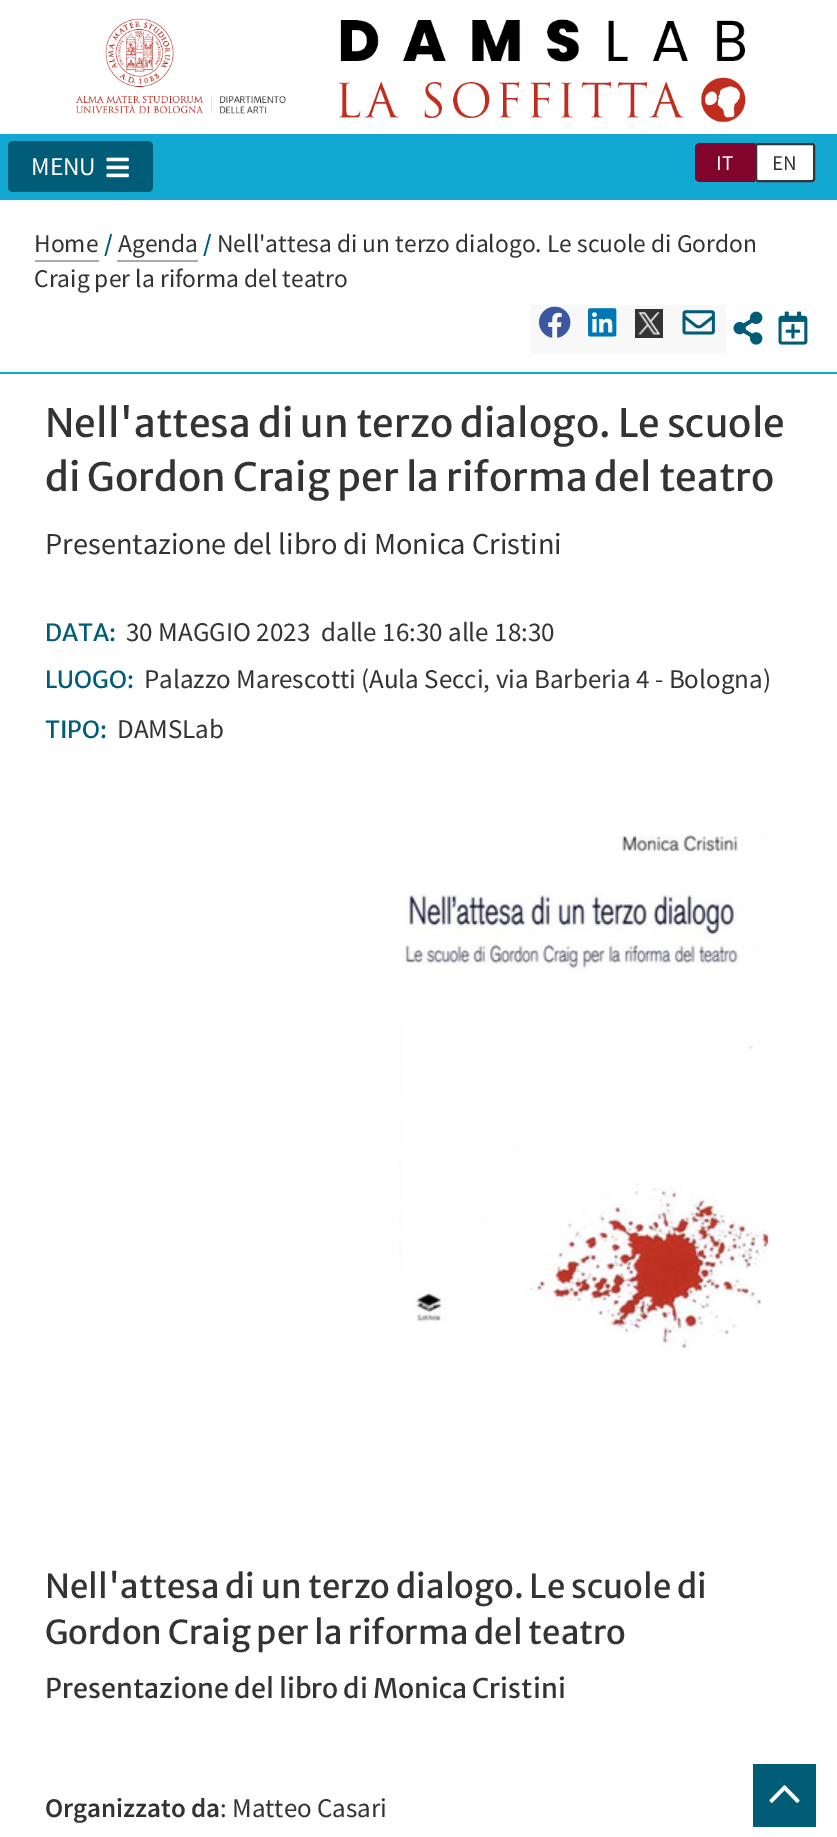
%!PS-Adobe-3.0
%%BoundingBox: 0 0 837 1837
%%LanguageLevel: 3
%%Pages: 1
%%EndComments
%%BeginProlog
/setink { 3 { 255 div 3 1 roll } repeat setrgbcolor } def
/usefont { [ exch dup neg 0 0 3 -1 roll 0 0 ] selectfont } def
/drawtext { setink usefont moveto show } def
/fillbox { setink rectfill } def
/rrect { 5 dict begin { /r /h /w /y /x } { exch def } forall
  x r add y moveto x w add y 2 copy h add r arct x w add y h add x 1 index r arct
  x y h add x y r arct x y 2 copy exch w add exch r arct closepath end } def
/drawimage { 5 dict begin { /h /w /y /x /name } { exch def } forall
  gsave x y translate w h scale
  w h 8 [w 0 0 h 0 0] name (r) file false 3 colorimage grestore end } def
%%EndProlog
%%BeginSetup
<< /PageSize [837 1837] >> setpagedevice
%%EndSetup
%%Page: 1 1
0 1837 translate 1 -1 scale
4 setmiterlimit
0 0 837 1837 255 255 255 fillbox
0 134 837 66 19 168 209 fillbox
1 93 119 setink
8 141 145 51 5 rrect fill
(MENU) 31 175 /SourceSansPro-Regular 25.5 255 255 255 drawtext
(assets/img1.rgb) 106 157 23 21 drawimage
(assets/img2.rgb) 75 18 671 105 drawimage
129 4 45 setink
700 143 moveto 755 143 lineto 755 182 lineto 700 182 lineto 697 182 695 180 695 177 curveto 695 148 lineto 695 145 697 143 700 143 curveto closepath fill
(IT) 716 170 /SourceSansPro-Regular 21 255 255 255 drawtext
756 144 58 37 2 rrect gsave fill grestore
51 51 51 setink
2 setlinewidth
stroke
(EN) 772 170 /SourceSansPro-Regular 21 51 51 51 drawtext
0 372 837 2 19 168 209 fillbox
(Home) 34 252 /SourceSansPro-Regular 25.5 51 51 51 drawtext
35 260 64 2 170 170 170 fillbox
(/) 104 252 /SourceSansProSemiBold-SemiBold 25.5 1 93 119 drawtext
(Agenda) 118 252 /SourceSansPro-Regular 25.5 51 51 51 drawtext
117 260 81 2 170 170 170 fillbox
(/) 203 252 /SourceSansProSemiBold-SemiBold 25.5 1 93 119 drawtext
(Nell'attesa di un terzo dialogo. Le scuole di Gordon) 217 252 /SourceSansPro-Regular 25.5 51 51 51 drawtext
(Craig per la riforma del teatro) 34 287 /SourceSansPro-Regular 25.5 51 51 51 drawtext
531 305 195 48 248 248 248 fillbox
(assets/img3.rgb) 539 306 32 32 drawimage
(assets/img4.rgb) 588 308 29 29 drawimage
635 309 28 29 51 51 51 fillbox
(assets/img5.rgb) 638 312 22 23 drawimage
(assets/img6.rgb) 682 310 33 25 drawimage
(assets/img7.rgb) 733 311 30 34 drawimage
(assets/img8.rgb) 778 311 30 34 drawimage
(Nell'attesa di un terzo dialogo. Le scuole) 45 437 /MerriweatherSans-Regular 39 51 51 51 drawtext
(di Gordon Craig per la riforma del teatro) 45 491 /MerriweatherSans-Regular 39 51 51 51 drawtext
(Presentazione del libro di Monica Cristini) 45 554 /SourceSansPro-Regular 30.4 51 51 51 drawtext
(DATA:) 45 641 /MerriweatherSans-Regular 23.5 1 93 119 drawtext
(30 MAGGIO 2023) 126 641 /SourceSansPro-Regular 27 51 51 51 drawtext
(dalle 16:30 alle 18:30) 321 641 /SourceSansPro-Regular 27 51 51 51 drawtext
(LUOGO:) 45 688 /MerriweatherSans-Regular 23.5 1 93 119 drawtext
(Palazzo Marescotti \(Aula Secci, via Barberia 4 - Bologna\)) 144 688 /SourceSansPro-Regular 27 51 51 51 drawtext
(TIPO:) 45 738 /MerriweatherSans-Regular 23.5 1 93 119 drawtext
(DAMSLab) 117 738 /SourceSansPro-Regular 27 51 51 51 drawtext
(assets/img9.rgb) 399 835 370 516 drawimage
(Nell'attesa di un terzo dialogo. Le scuole di) 45 1598 /MerriweatherSans-Regular 33 51 51 51 drawtext
(Gordon Craig per la riforma del teatro) 45 1644 /MerriweatherSans-Regular 33 51 51 51 drawtext
(Presentazione del libro di Monica Cristini) 45 1698 /MerriweatherSans-Regular 27 51 51 51 drawtext
(Organizzato da) 45 1817 /SourceSansProSemiBold-SemiBold 27 51 51 51 drawtext
(: Matteo Casari) 220 1817 /SourceSansPro-Regular 27 51 51 51 drawtext
753 1764 63 63 1 93 119 fillbox
(assets/img10.rgb) 769 1785 31 18 drawimage
showpage
%%EOF
